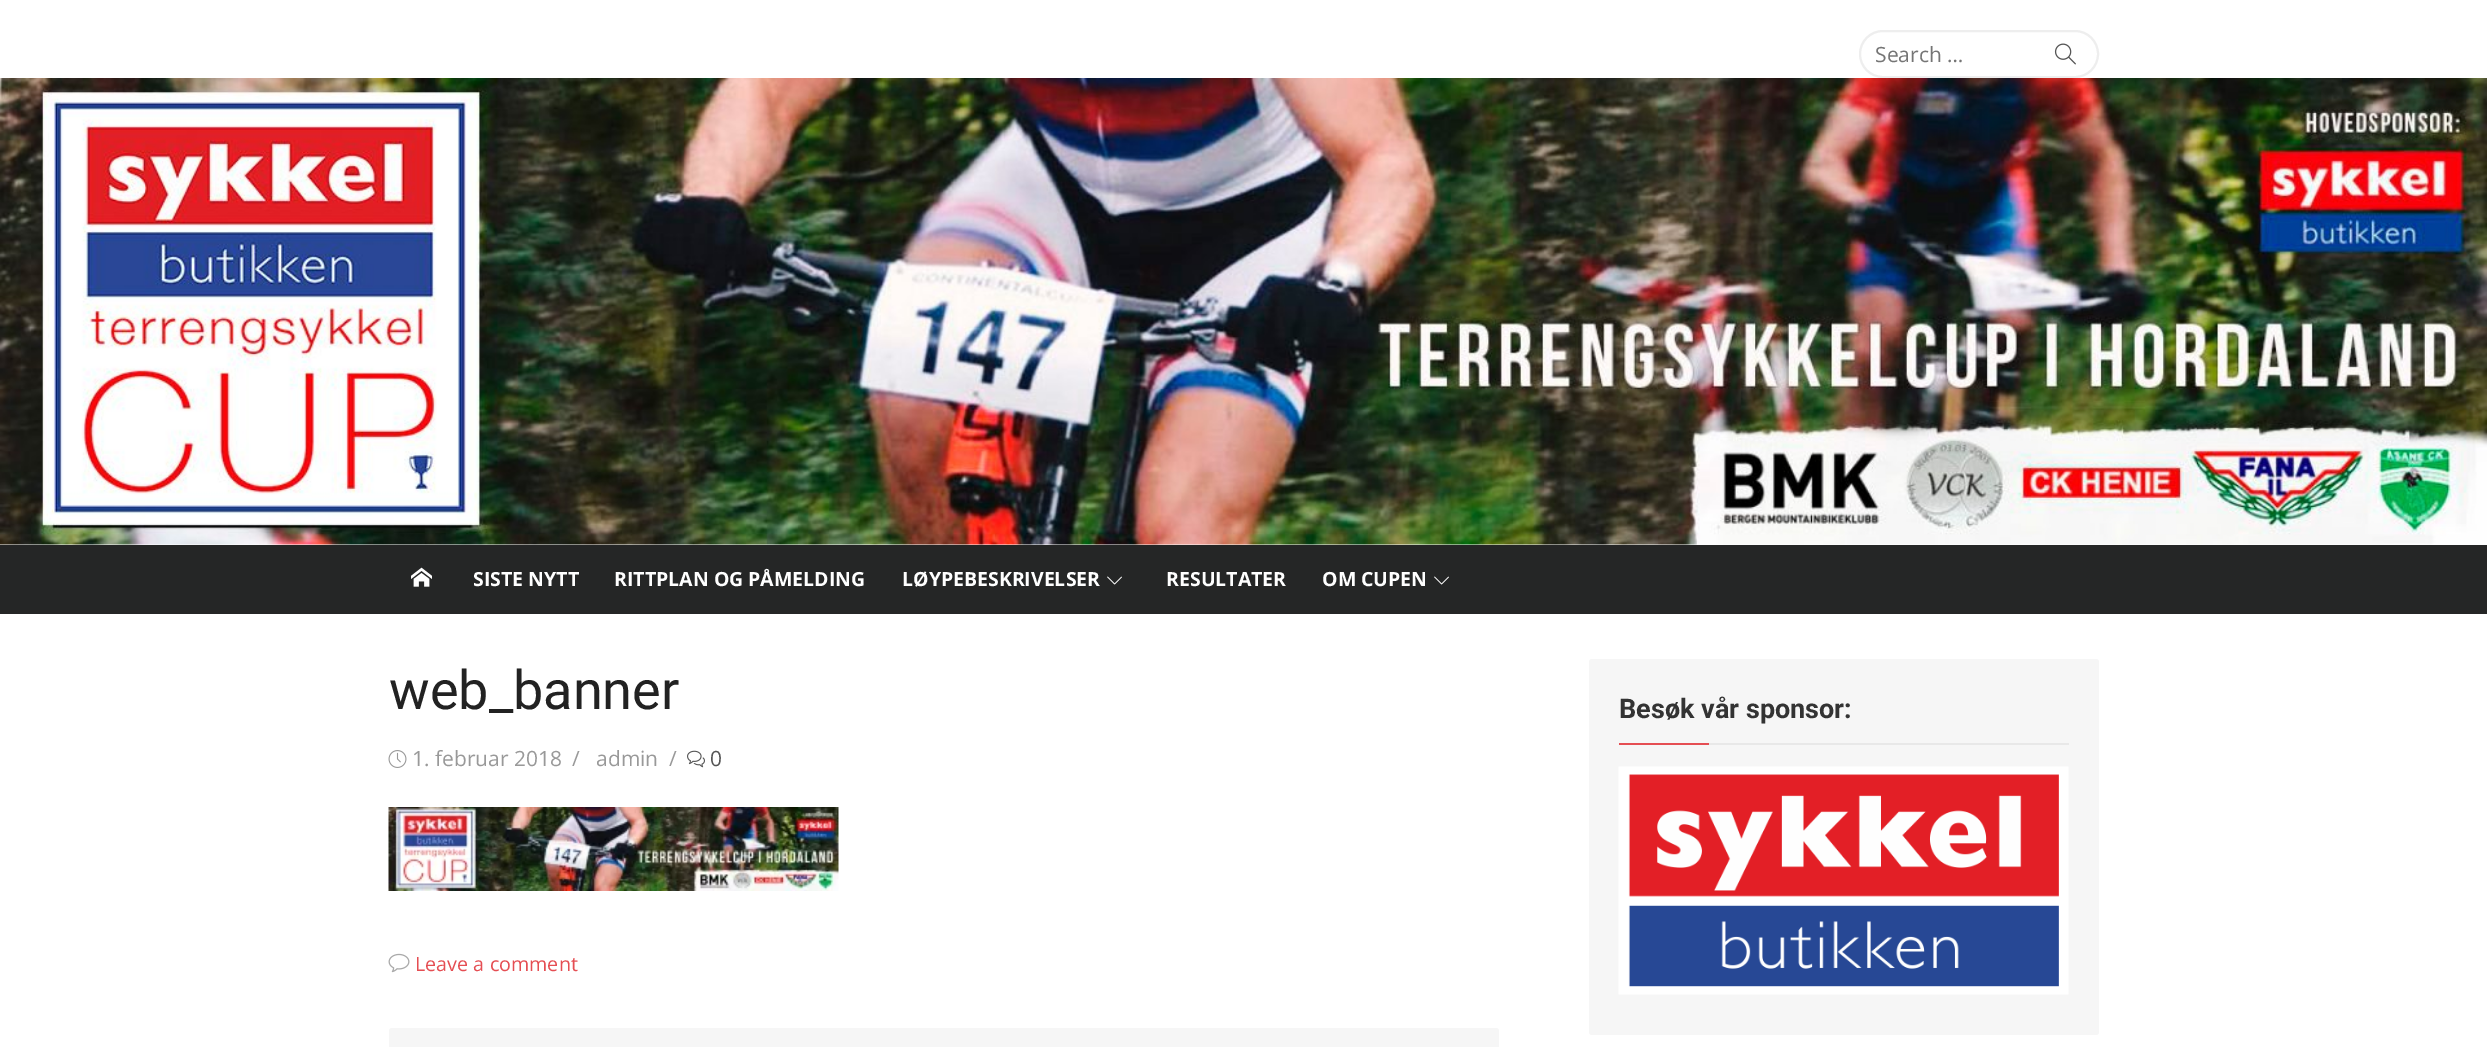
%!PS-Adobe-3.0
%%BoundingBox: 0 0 2487 1047
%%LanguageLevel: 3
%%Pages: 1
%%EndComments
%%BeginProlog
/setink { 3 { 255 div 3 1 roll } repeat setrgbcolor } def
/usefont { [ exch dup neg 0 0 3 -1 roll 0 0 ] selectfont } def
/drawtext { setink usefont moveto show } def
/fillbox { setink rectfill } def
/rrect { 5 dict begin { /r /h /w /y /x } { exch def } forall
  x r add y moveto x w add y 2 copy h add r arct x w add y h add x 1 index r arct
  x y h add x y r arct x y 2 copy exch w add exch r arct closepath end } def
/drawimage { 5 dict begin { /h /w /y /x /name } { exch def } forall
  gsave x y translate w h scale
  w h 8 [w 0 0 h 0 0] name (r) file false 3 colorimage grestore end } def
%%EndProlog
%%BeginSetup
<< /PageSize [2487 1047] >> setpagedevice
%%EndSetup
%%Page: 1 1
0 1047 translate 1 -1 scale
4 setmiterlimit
0 0 2487 1047 255 255 255 fillbox
238 238 238 setink
2 setlinewidth
1860 31 238 46 23 rrect stroke
(Search …) 1875 62 /OpenSans-Regular 21 117 117 117 drawtext
(assets/img1.rgb) 2054 43 22 22 drawimage
(assets/img2.rgb) 0 78 2487 467 drawimage
0 545 2487 69 37 38 38 fillbox
(assets/img3.rgb) 411 567 21 20 drawimage
(SISTE NYTT) 473 586 /OpenSans-Bold 19.5 255 255 255 drawtext
(RITTPLAN OG PÅMELDING) 614 586 /OpenSans-Bold 19.5 255 255 255 drawtext
(LØYPEBESKRIVELSER) 902 586 /OpenSans-Bold 19.5 255 255 255 drawtext
(assets/img4.rgb) 1107 576 15 9 drawimage
(RESULTATER) 1166 586 /OpenSans-Bold 19.5 255 255 255 drawtext
(OM CUPEN) 1322 586 /OpenSans-Bold 19.5 255 255 255 drawtext
(assets/img4.rgb) 1434 576 15 9 drawimage
(web_banner) 389 709 /Roboto-Regular 54 34 34 34 drawtext
(assets/img5.rgb) 388 750 19 18 drawimage
(1. februar 2018) 412 766 /OpenSans-Regular 21 153 153 153 drawtext
(/) 572 766 /OpenSans-Regular 21 153 153 153 drawtext
(admin) 596 766 /OpenSans-Regular 21 153 153 153 drawtext
(/) 669 766 /OpenSans-Regular 21 153 153 153 drawtext
(assets/img6.rgb) 687 750 18 18 drawimage
(0) 710 766 /OpenSans-Regular 21 85 85 85 drawtext
(assets/img7.rgb) 388 807 451 84 drawimage
(assets/img8.rgb) 388 953 22 20 drawimage
(Leave a comment) 415 971 /OpenSans-Regular 19.75 229 78 83 drawtext
246 246 246 setink
389 1028 1110 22 3 rrect fill
1589 659 510 376 3 rrect fill
1709 743 360 2 232 232 232 fillbox
(Besøk vår sponsor:) 1619 718 /Roboto-Bold 27 51 51 51 drawtext
1619 743 90 2 229 78 83 fillbox
(assets/img9.rgb) 1618 766 451 229 drawimage
showpage
%%EOF
